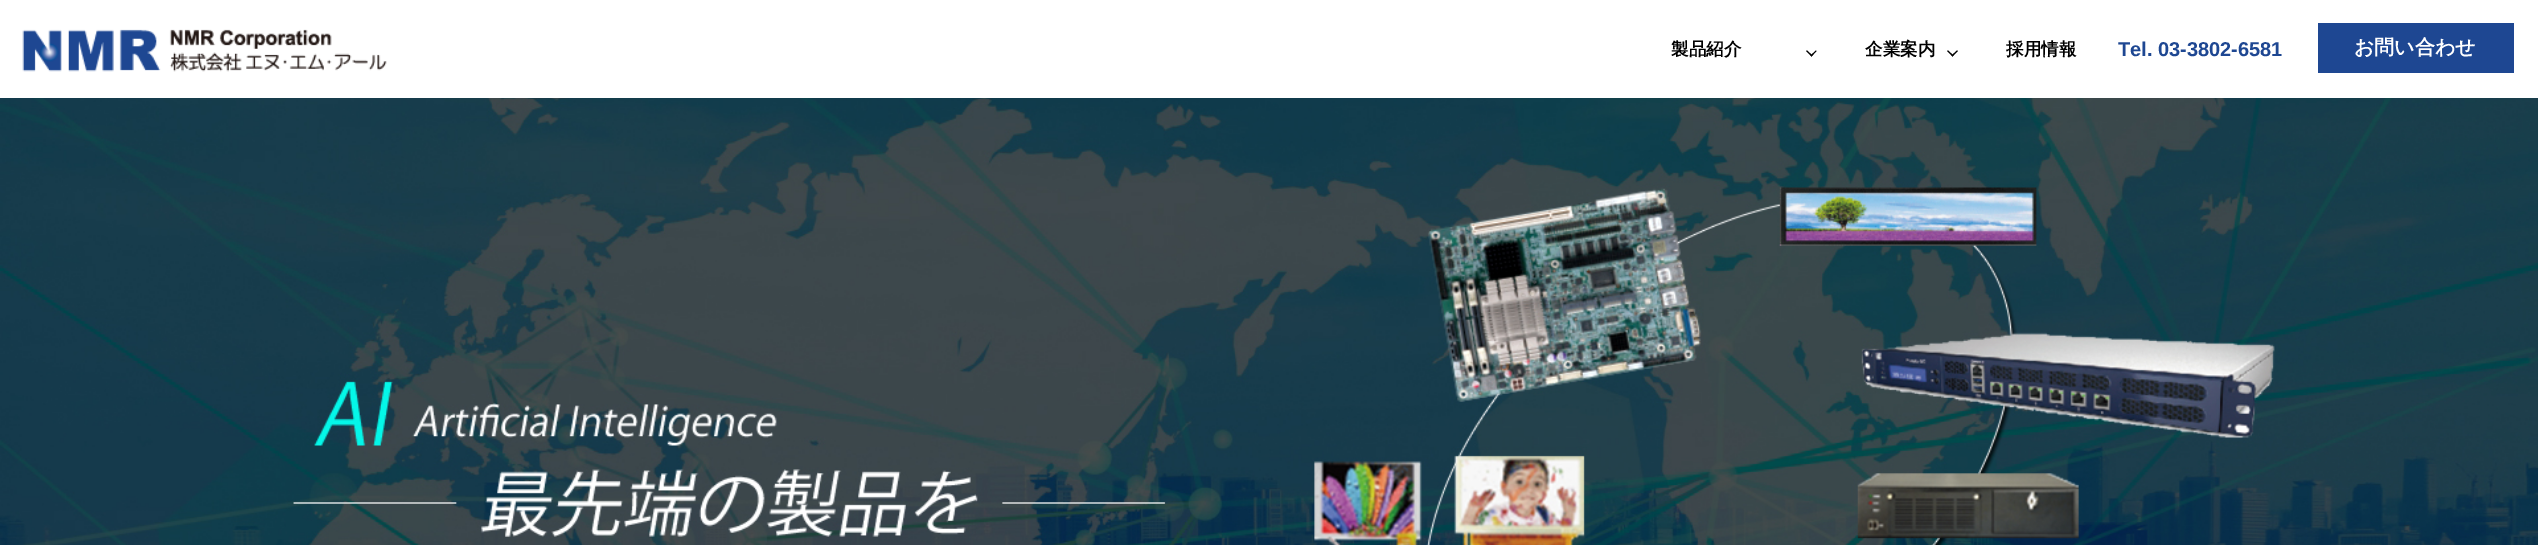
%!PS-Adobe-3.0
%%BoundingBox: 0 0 2538 545
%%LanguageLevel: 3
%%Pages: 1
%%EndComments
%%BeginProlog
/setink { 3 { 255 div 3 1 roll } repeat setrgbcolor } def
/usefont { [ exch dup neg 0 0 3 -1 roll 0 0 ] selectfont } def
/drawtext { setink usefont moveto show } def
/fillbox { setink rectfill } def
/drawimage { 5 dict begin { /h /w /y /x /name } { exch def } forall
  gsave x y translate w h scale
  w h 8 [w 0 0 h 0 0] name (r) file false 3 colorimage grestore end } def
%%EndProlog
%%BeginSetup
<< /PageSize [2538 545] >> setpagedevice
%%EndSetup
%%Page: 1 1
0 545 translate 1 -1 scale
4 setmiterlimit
0 0 2538 545 255 255 255 fillbox
(assets/img1.rgb) 22 29 365 43 drawimage
(製品紹介) 1671 55 /WenQuanYiZenHei-Bold 17.5 0 0 0 drawtext
1816 50.5 moveto 1816.5 51 lineto 1811.5 56.5 lineto 1810.5 55.5 lineto closepath fill
1807 50.5 moveto 1812.5 55.5 lineto 1811.5 56.5 lineto 1806 51 lineto closepath fill
(企業案内) 1865 55 /WenQuanYiZenHei-Bold 17.5 0 0 0 drawtext
1957 50.5 moveto 1958 51 lineto 1952.5 56.5 lineto 1951.5 55.5 lineto closepath fill
1948 50.5 moveto 1953.5 55.5 lineto 1952.5 56.5 lineto 1947 51 lineto closepath fill
(採用情報) 2006 55 /WenQuanYiZenHei-Bold 17.5 0 0 0 drawtext
(Tel. 03-3802-6581) 2118 56 /LiberationSans-Bold 20 30 71 146 drawtext
2318 23 196 50 30 71 146 fillbox
(お問い合わせ) 2354 54 /WenQuanYiZenHei-Bold 20 255 255 255 drawtext
(assets/img2.rgb) 0 98 2538 447 drawimage
showpage
%%EOF
